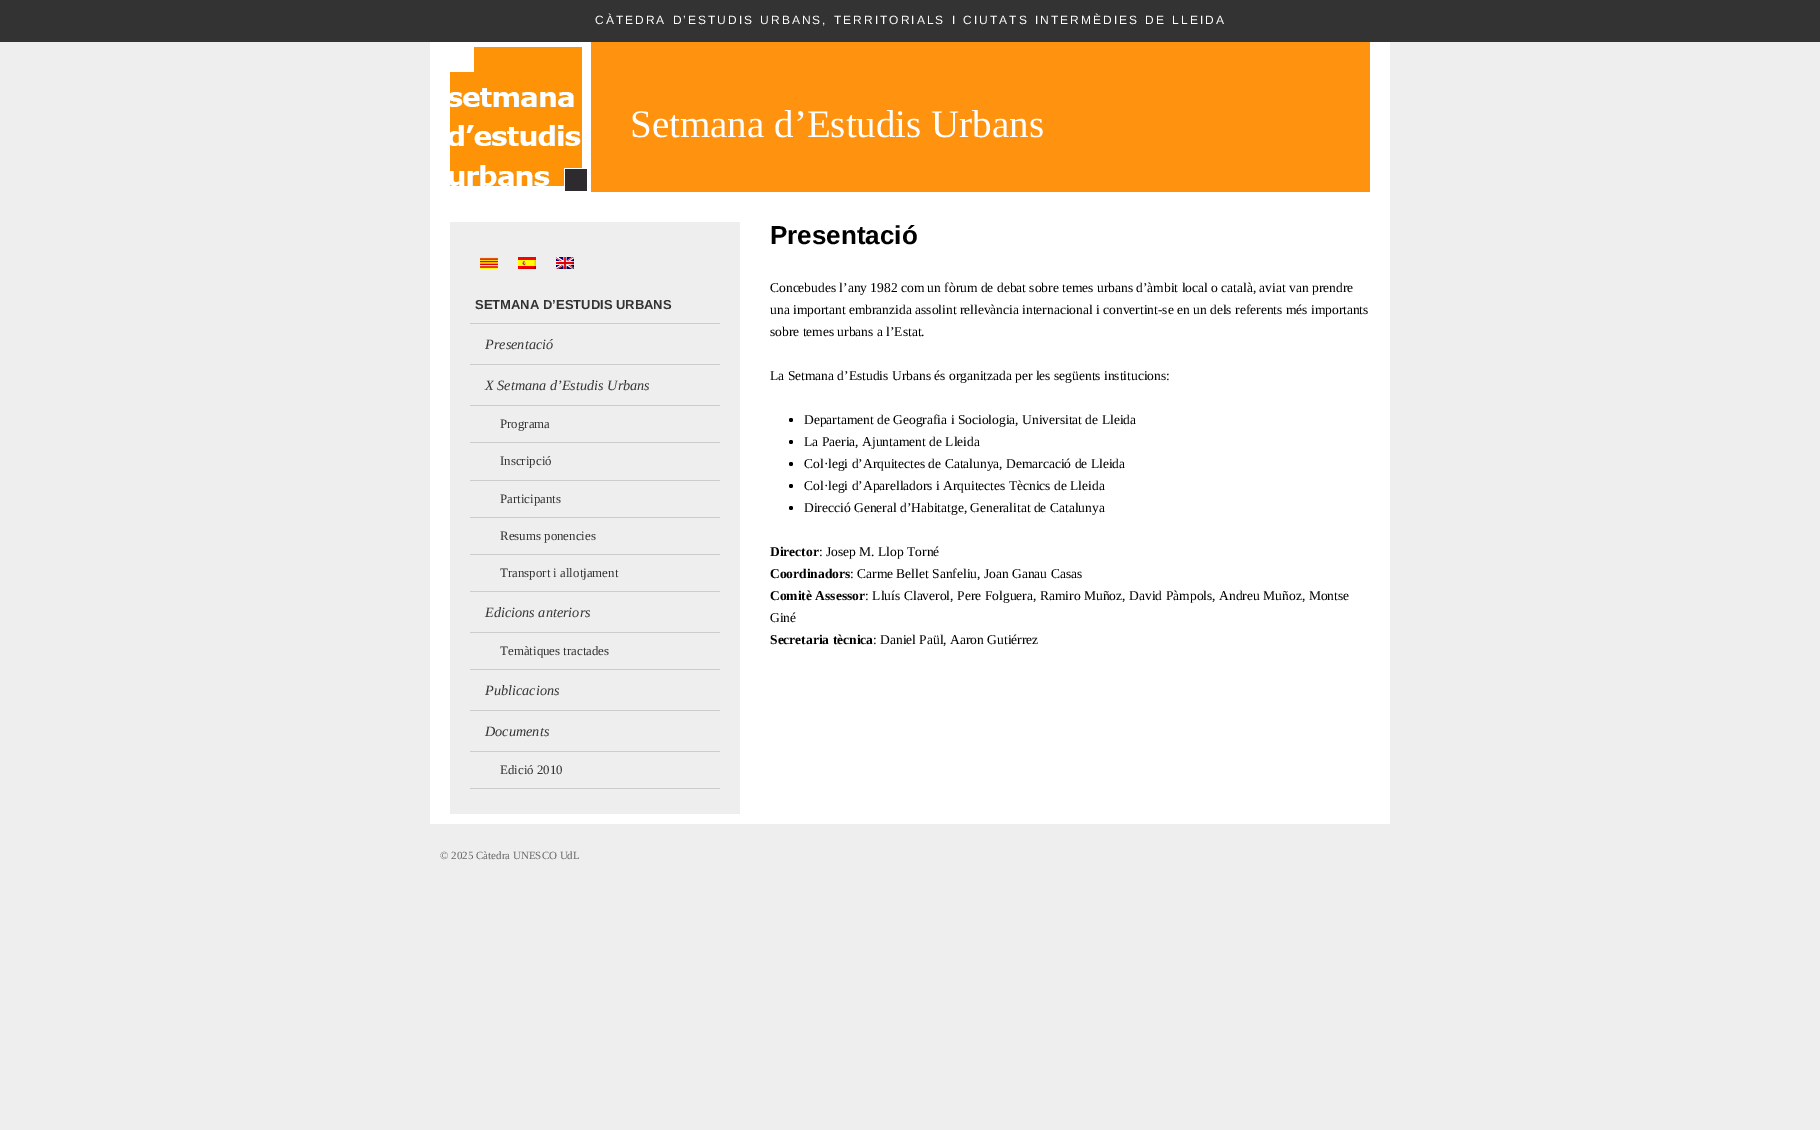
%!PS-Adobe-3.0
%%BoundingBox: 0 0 1820 1130
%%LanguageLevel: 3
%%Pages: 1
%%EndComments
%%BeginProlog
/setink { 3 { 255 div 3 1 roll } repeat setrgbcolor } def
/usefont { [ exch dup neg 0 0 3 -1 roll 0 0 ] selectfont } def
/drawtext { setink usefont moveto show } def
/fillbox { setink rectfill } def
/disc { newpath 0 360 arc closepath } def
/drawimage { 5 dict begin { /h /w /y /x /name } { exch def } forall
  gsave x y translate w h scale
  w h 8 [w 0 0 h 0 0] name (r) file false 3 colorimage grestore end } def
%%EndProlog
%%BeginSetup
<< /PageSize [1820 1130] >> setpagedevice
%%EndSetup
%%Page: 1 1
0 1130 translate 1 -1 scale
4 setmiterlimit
0 0 1820 1130 238 238 238 fillbox
0 0 1820 42 51 51 51 fillbox
/LiberationSans-Regular 12 usefont
255 255 255 setink
595 24 moveto 1 0 32 2 0 (CÀTEDRA D’ESTUDIS URBANS, TERRITORIALS I CIUTATS INTERMÈDIES DE LLEIDA) awidthshow
430 42 960 782 255 255 255 fillbox
591 42 779 150 255 146 15 fillbox
(assets/img1.rgb) 450 42 141 150 drawimage
(Setmana d’Estudis Urbans) 630 137 /LiberationSerif-Regular 39 255 255 255 drawtext
450 222 290 592 238 238 238 fillbox
(assets/img2.rgb) 480 257 18 12 drawimage
(assets/img3.rgb) 518 257 18 12 drawimage
(assets/img4.rgb) 556 257 18 12 drawimage
470 323 250 1 204 204 204 fillbox
(SETMANA D’ESTUDIS URBANS) 475 309 /LiberationSans-Bold 13 51 51 51 drawtext
470 364 250 1 204 204 204 fillbox
(Presentació) 485 349 /LiberationSerif-Italic 14.25 51 51 51 drawtext
470 405 250 1 204 204 204 fillbox
(X Setmana d’Estudis Urbans) 485 390 /LiberationSerif-Italic 14.25 51 51 51 drawtext
470 442 250 1 204 204 204 fillbox
(Programa) 500 428 /LiberationSerif-Regular 12.9 51 51 51 drawtext
470 480 250 1 204 204 204 fillbox
(Inscripció) 500 465 /LiberationSerif-Regular 12.9 51 51 51 drawtext
470 517 250 1 204 204 204 fillbox
(Participants) 500 503 /LiberationSerif-Regular 12.9 51 51 51 drawtext
470 554 250 1 204 204 204 fillbox
(Resums ponencies) 500 540 /LiberationSerif-Regular 12.9 51 51 51 drawtext
470 591 250 1 204 204 204 fillbox
(Transport i allotjament) 500 577 /LiberationSerif-Regular 12.9 51 51 51 drawtext
470 632 250 1 204 204 204 fillbox
(Edicions anteriors) 485 617 /LiberationSerif-Italic 14.25 51 51 51 drawtext
470 669 250 1 204 204 204 fillbox
(Temàtiques tractades) 500 655 /LiberationSerif-Regular 12.9 51 51 51 drawtext
470 710 250 1 204 204 204 fillbox
(Publicacions) 485 695 /LiberationSerif-Italic 14.25 51 51 51 drawtext
470 751 250 1 204 204 204 fillbox
(Documents) 485 736 /LiberationSerif-Italic 14.25 51 51 51 drawtext
470 788 250 1 204 204 204 fillbox
(Edició 2010) 500 774 /LiberationSerif-Regular 12.9 51 51 51 drawtext
(Presentació) 770 244 /LiberationSans-Bold 26 0 0 0 drawtext
(Concebudes l’any 1982 com un fòrum de debat sobre temes urbans d’àmbit local o català, aviat van prendre) 770 292 /LiberationSerif-Regular 13.5 0 0 0 drawtext
(una important embranzida assolint rellevància internacional i convertint-se en un dels referents més importants) 770 314 /LiberationSerif-Regular 13.5 0 0 0 drawtext
(sobre temes urbans a l’Estat.) 770 336 /LiberationSerif-Regular 13.5 0 0 0 drawtext
(La Setmana d’Estudis Urbans és organitzada per les següents institucions:) 770 380 /LiberationSerif-Regular 13.5 0 0 0 drawtext
791 420 2 disc fill
(Departament de Geografia i Sociologia, Universitat de Lleida) 804 424 /LiberationSerif-Regular 13.5 0 0 0 drawtext
791 442 2 disc fill
(La Paeria, Ajuntament de Lleida) 804 446 /LiberationSerif-Regular 13.5 0 0 0 drawtext
791 464 2 disc fill
(Col·legi d’Arquitectes de Catalunya, Demarcació de Lleida) 804 468 /LiberationSerif-Regular 13.5 0 0 0 drawtext
791 486 2 disc fill
(Col·legi d’Aparelladors i Arquitectes Tècnics de Lleida) 804 490 /LiberationSerif-Regular 13.5 0 0 0 drawtext
791 508 2 disc fill
(Direcció General d’Habitatge, Generalitat de Catalunya) 804 512 /LiberationSerif-Regular 13.5 0 0 0 drawtext
(Director) 770 556 /LiberationSerif-Bold 13.5 0 0 0 drawtext
(: Josep M. Llop Torné) 819 556 /LiberationSerif-Regular 13.5 0 0 0 drawtext
(Coordinadors) 770 578 /LiberationSerif-Bold 13.5 0 0 0 drawtext
(: Carme Bellet Sanfeliu, Joan Ganau Casas) 850 578 /LiberationSerif-Regular 13.5 0 0 0 drawtext
(Comitè Assessor) 770 600 /LiberationSerif-Bold 13.5 0 0 0 drawtext
/LiberationSerif-Regular 13.5 usefont
865 600 moveto 0.25 0 32 (: Lluís Claverol, Pere Folguera, Ramiro Muñoz, David Pàmpols, Andreu Muñoz, Montse) widthshow
(Giné) 770 622 /LiberationSerif-Regular 13.5 0 0 0 drawtext
(Secretaria tècnica) 770 644 /LiberationSerif-Bold 13.5 0 0 0 drawtext
(: Daniel Paül, Aaron Gutiérrez) 873 644 /LiberationSerif-Regular 13.5 0 0 0 drawtext
(© 2025 Càtedra UNESCO UdL) 440 859 /LiberationSerif-Regular 11 102 102 102 drawtext
showpage
%%EOF
